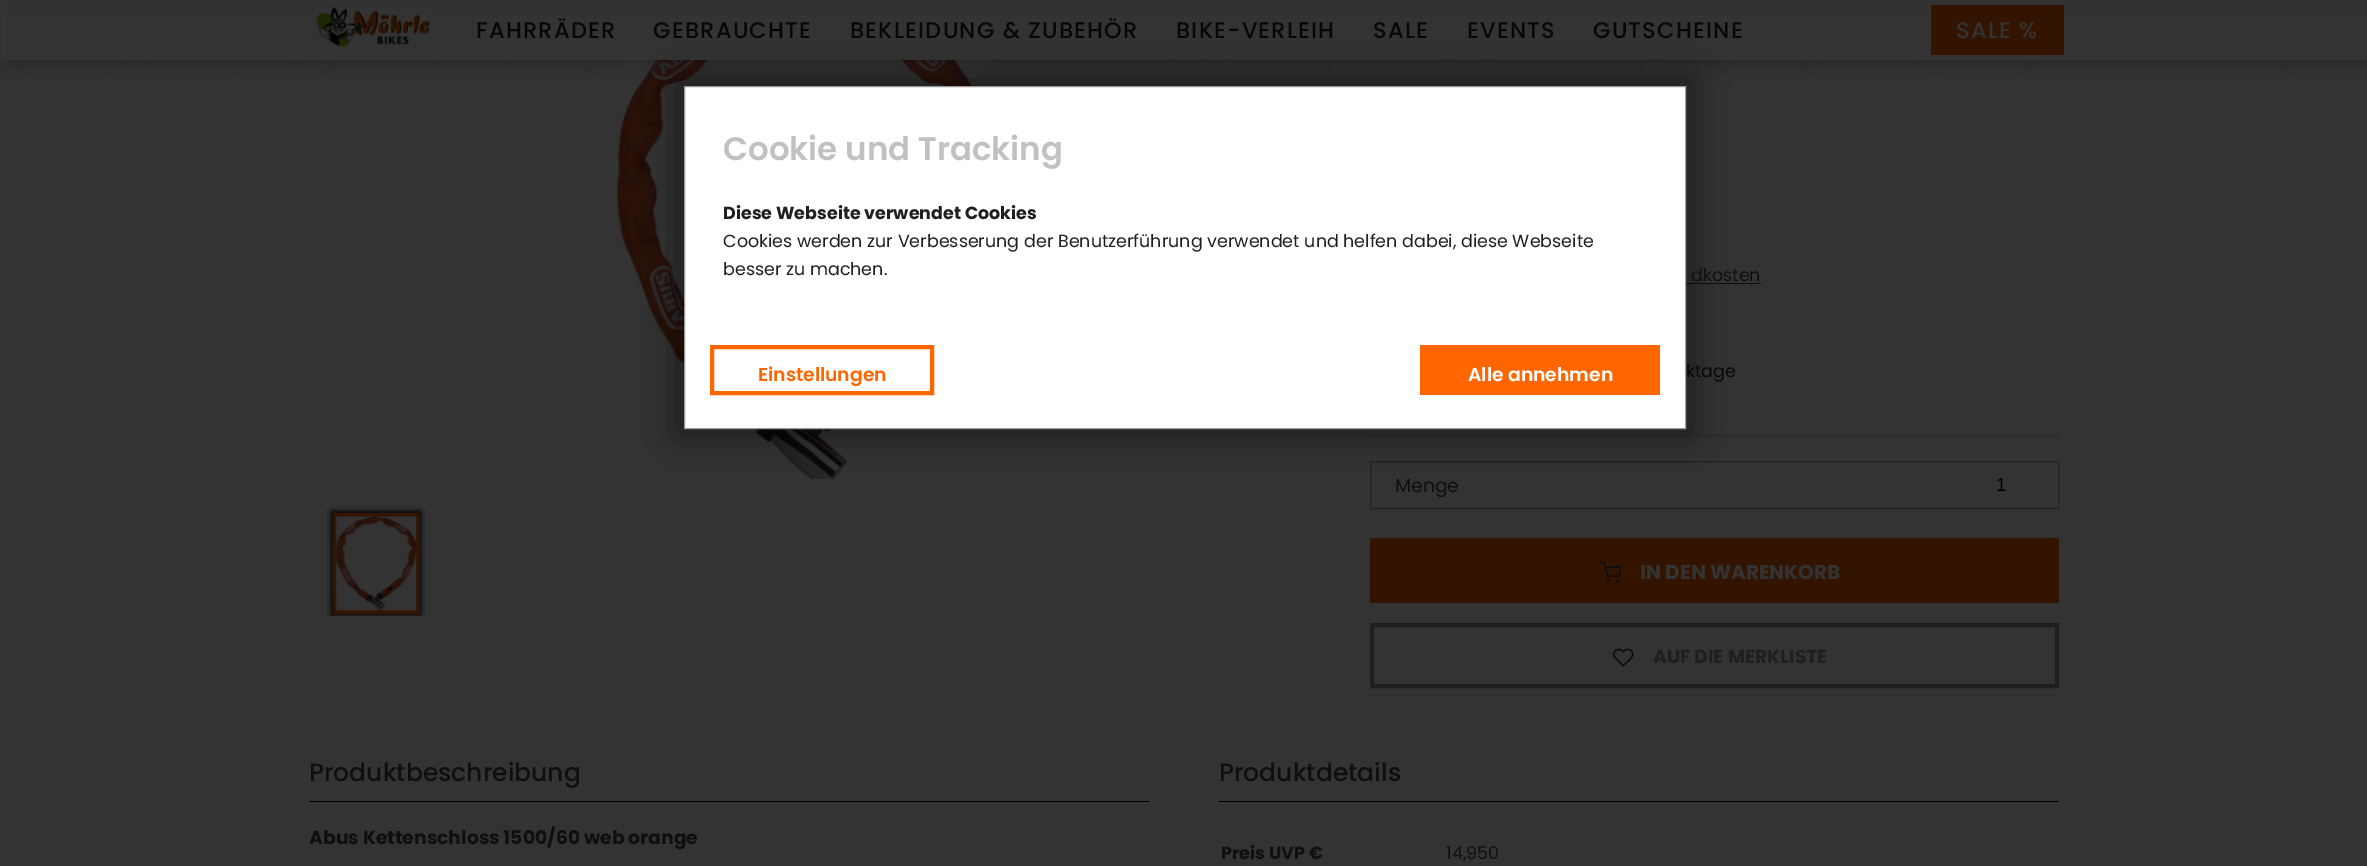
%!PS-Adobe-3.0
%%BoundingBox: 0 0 2367 866
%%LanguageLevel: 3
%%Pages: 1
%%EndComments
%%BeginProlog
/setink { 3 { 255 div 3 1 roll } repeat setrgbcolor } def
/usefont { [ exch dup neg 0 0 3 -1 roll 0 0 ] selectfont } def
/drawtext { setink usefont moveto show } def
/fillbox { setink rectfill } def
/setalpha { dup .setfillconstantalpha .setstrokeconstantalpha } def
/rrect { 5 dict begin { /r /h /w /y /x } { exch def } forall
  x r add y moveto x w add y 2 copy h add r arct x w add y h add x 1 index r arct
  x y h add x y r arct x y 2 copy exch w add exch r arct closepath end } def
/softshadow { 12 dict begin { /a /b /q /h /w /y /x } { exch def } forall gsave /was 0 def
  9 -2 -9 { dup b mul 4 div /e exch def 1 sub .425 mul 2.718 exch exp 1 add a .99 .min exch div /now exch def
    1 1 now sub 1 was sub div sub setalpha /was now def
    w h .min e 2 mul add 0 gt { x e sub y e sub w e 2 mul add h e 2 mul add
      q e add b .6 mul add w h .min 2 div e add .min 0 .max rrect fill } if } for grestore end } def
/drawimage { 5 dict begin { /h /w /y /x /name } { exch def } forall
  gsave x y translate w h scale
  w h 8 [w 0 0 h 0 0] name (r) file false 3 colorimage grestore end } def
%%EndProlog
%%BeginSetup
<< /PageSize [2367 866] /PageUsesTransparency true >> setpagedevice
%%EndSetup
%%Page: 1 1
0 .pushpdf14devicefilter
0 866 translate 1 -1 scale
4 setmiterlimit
0 0 2367 866 51 51 51 fillbox
(assets/img1.rgb) 0 60 2367 25 drawimage
(assets/img3.rgb) 617 60 375 419 drawimage
0 0 0 setink
10 20 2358 40 0 10 0.3 softshadow
1 10 2366 50 51 51 51 fillbox
(assets/img2.rgb) 316 7 114 40 drawimage
/Poppins-Medium 22.5 usefont
7 7 7 setink
476 38 moveto 1.25 0 (FAHRRÄDER) ashow
653 38 moveto 1.25 0 (GEBRAUCHTE) ashow
850 38 moveto 1.25 0 (BEKLEIDUNG & ZUBEHÖR) ashow
1176 38 moveto 1.25 0 (BIKE-VERLEIH) ashow
1373 38 moveto 1.25 0 (SALE) ashow
1467 38 moveto 1.25 0 (EVENTS) ashow
1593 38 moveto 1.25 0 (GUTSCHEINE) ashow
1931 5 133 50 51 20 0 fillbox
51 51 51 setink
1956 38 moveto 1.25 0 (SALE %) ashow
1686 283 75 1 15 15 15 fillbox
1370 435 689 1 41 41 41 fillbox
34 34 34 setink
1370.5 461.5 688 47 rectstroke
0 0 0 setink
679 81 1012 353 0 18 0.5 softshadow
255 255 255 setink
684.5 86.5 moveto 1685.5 86.5 lineto 1685.5 428.5 lineto 684.5 428.5 lineto closepath gsave fill grestore
153 153 153 setink
stroke
(Cookie und Tracking) 723 160 /Poppins-SemiBold 32.5 193 193 193 drawtext
(Diese Webseite verwendet Cookies) 723 219 /Poppins-Bold 17.5 31 31 31 drawtext
(Cookies werden zur Verbesserung der Benutzerführung verwendet und helfen dabei, diese Webseite) 723 247 /Poppins-Regular 17.5 31 31 31 drawtext
(besser zu machen.) 723 275 /Poppins-Regular 17.5 31 31 31 drawtext
255 102 0 setink
4 setlinewidth
712 347 220 46 rectstroke
(Einstellungen) 758 381 /Poppins-SemiBold 18.75 255 102 0 drawtext
1420 345 240 50 255 102 0 fillbox
(Alle annehmen) 1468 381 /Poppins-SemiBold 18.75 255 255 255 drawtext
gsave
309 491 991 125 rectclip
0 0 0 setink
331 511 90 104 0 2.5 0.95 softshadow
grestore
333 513 87 101 51 20 0 fillbox
(assets/img4.rgb) 336 516 81 95 drawimage
0.09 setalpha
332 539 32 57 51 51 51 fillbox
1 setalpha
(dkosten) 1691 281 /Poppins-Regular 17.5 15 15 15 drawtext
(ktage) 1686 377 /Poppins-Regular 17.5 7 7 7 drawtext
(Menge) 1395 492 /Poppins-Regular 18.75 15 15 15 drawtext
/LiberationSans-Regular 18.75 usefont
0 0 0 setink
1996 491 moveto 1.25 0 (1) ashow
1370 538 689 65 51 20 0 fillbox
(assets/img5.rgb) 1600 561 21 22 drawimage
(IN DEN WARENKORB) 1640 579 /Poppins-Bold 20 51 51 51 drawtext
31 31 31 setink
1372 625 685 61 rectstroke
(assets/img6.rgb) 1613 648 21 19 drawimage
(AUF DIE MERKLISTE) 1653 663 /Poppins-Bold 18.75 31 31 31 drawtext
309 801 840 1 0 0 0 fillbox
(Produktbeschreibung) 309 781 /Poppins-Medium 25 15 15 15 drawtext
(Abus Kettenschloss 1500/60 web orange) 309 844 /Poppins-Bold 18.75 15 15 15 drawtext
1219 801 840 1 0 0 0 fillbox
(Produktdetails) 1219 781 /Poppins-Medium 25 15 15 15 drawtext
(Preis UVP €) 1221 859 /Poppins-Bold 17.5 15 15 15 drawtext
(14,950) 1446 859 /Poppins-Regular 17.5 15 15 15 drawtext
.poppdf14devicefilter showpage
%%EOF
